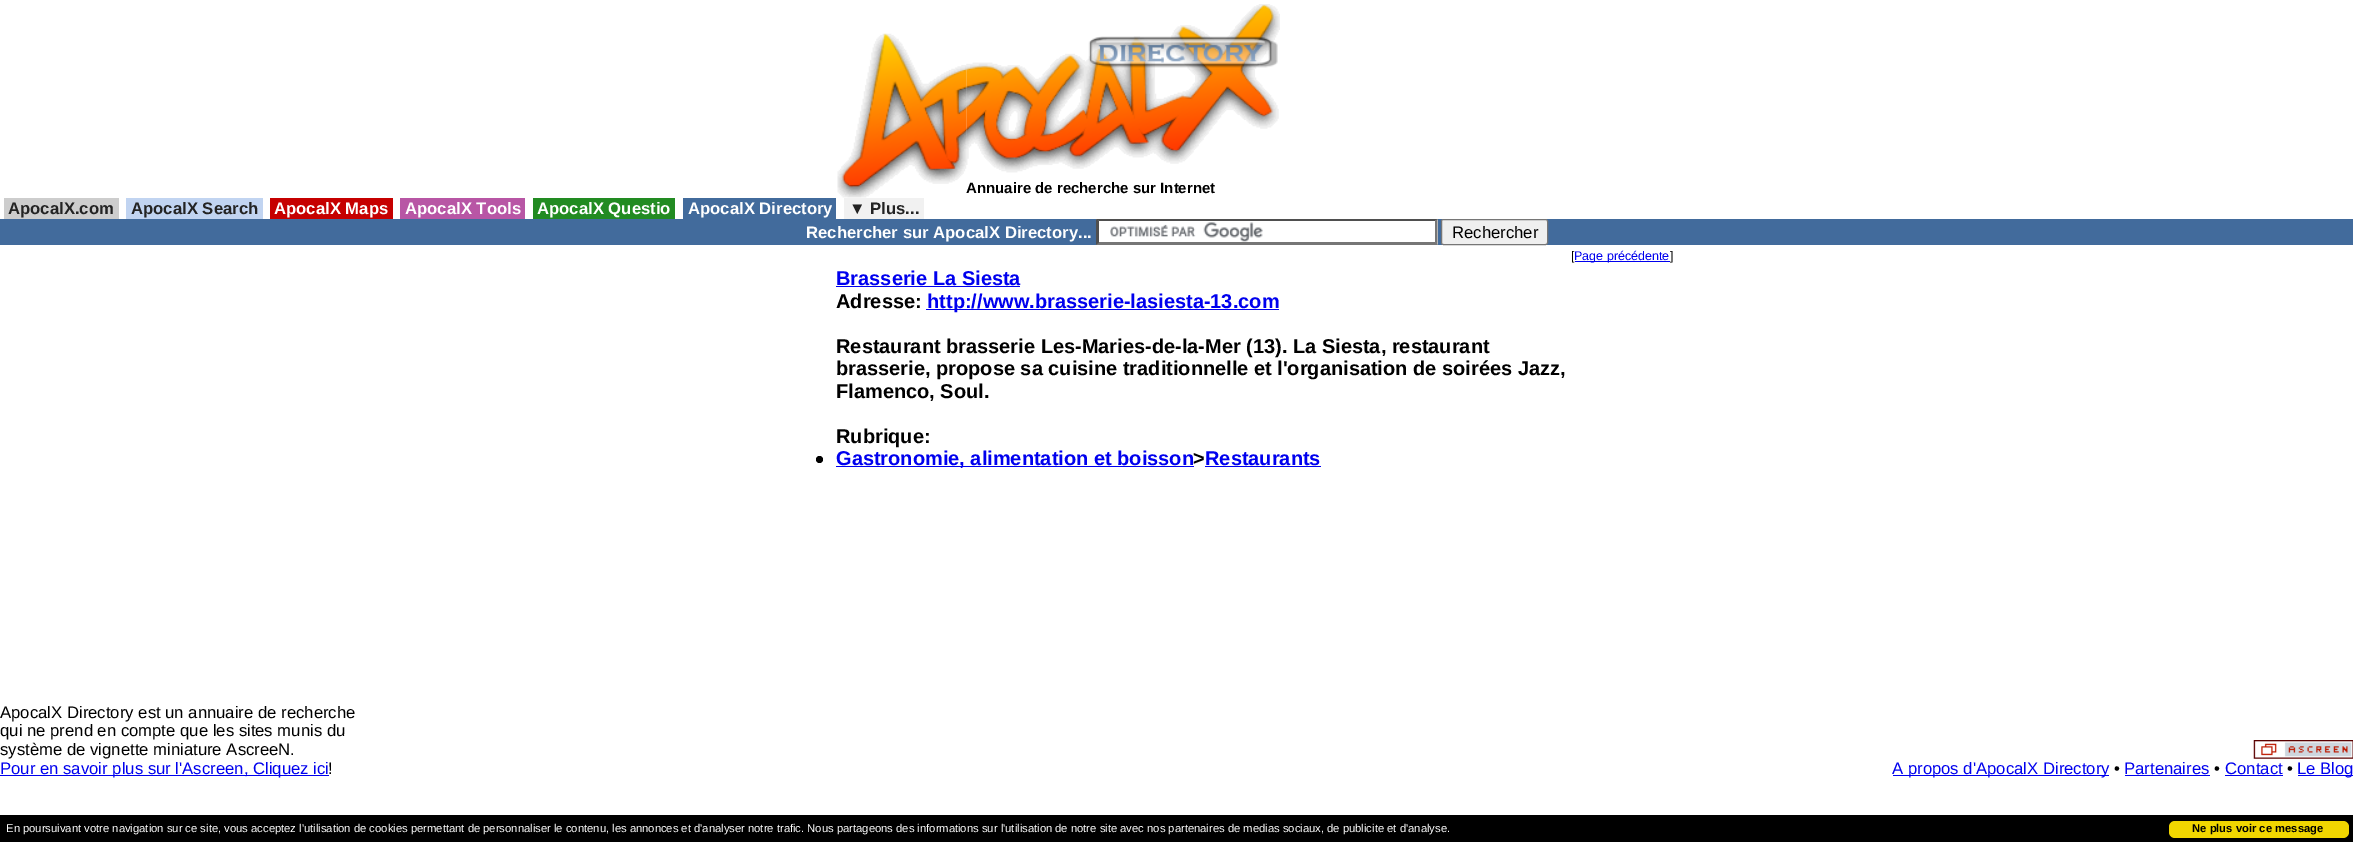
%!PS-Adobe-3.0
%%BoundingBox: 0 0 2353 842
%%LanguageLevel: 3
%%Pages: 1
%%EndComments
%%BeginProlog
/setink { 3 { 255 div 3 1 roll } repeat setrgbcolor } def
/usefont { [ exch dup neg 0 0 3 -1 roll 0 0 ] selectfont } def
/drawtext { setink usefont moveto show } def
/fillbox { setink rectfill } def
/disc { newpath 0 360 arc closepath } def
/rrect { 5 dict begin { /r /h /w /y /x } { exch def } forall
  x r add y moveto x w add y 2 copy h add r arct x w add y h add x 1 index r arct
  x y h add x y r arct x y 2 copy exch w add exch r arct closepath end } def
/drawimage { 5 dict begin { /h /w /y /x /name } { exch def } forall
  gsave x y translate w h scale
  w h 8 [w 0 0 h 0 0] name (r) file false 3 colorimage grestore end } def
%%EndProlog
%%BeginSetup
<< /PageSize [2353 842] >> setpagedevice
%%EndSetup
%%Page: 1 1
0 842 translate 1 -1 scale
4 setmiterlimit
0 0 2353 842 255 255 255 fillbox
(assets/img1.rgb) 837 33 130 165 drawimage
(assets/img2.rgb) 966 4 314 169 drawimage
(Annuaire de recherche sur Internet) 966 193 /LiberationSans-Bold 15 0 0 0 drawtext
4 198 115 21 205 205 205 fillbox
(ApocalX.com) 8 214 /LiberationSans-Bold 16.7 35 35 35 drawtext
126 198 137 21 193 212 241 fillbox
(ApocalX Search) 131 214 /LiberationSans-Bold 16.7 35 35 35 drawtext
270 198 123 21 198 0 0 fillbox
(ApocalX Maps) 274 214 /LiberationSans-Bold 16.7 255 255 255 drawtext
400 198 125 21 184 86 165 fillbox
(ApocalX Tools) 405 214 /LiberationSans-Bold 16.7 255 255 255 drawtext
533 198 142 21 34 139 34 fillbox
(ApocalX Questio) 537 214 /LiberationSans-Bold 16.7 255 255 255 drawtext
683 198 153 21 66 107 156 fillbox
(ApocalX Directory) 688 214 /LiberationSans-Bold 16.7 255 255 255 drawtext
844 198 80 21 241 241 241 fillbox
(▼ Plus...) 849 214 /LiberationSans-Bold 16.7 35 35 35 drawtext
0 219 2353 26 66 107 156 fillbox
(Rechercher sur ApocalX Directory...) 806 238 /LiberationSans-Bold 16.7 255 255 255 drawtext
1096 219 342 26 255 255 255 fillbox
(assets/img3.rgb) 1110 222 153 20 drawimage
79 79 79 setink
1096 219 moveto 1438 219 lineto 1435 221 lineto 1099 221 lineto closepath fill
118 118 118 setink
1437.5 219 moveto 1437.5 245 lineto 1435 242.5 lineto 1435 221 lineto closepath fill
1438 245 moveto 1096 245 lineto 1099 242 lineto 1435 242 lineto closepath fill
79 79 79 setink
1096 245 moveto 1096 219 lineto 1099 221 lineto 1099 242.5 lineto closepath fill
239 239 239 setink
1441.5 219.5 106 25 2 rrect gsave fill grestore
118 118 118 setink
stroke
(Rechercher) 1452 238 /LiberationSans-Regular 16.7 0 0 0 drawtext
([) 1571 260 /LiberationSans-Regular 12.5 0 0 0 drawtext
1575 261 95 1 0 0 238 fillbox
(Page précédente) 1574 260 /LiberationSans-Regular 12.5 0 0 238 drawtext
(]) 1670 260 /LiberationSans-Regular 12.5 0 0 0 drawtext
(Brasserie La Siesta) 836 285 /LiberationSans-Bold 20 0 0 238 drawtext
836 286 184 1 0 0 238 fillbox
(Adresse:) 836 308 /LiberationSans-Bold 20 0 0 0 drawtext
926 309 353 1 0 0 238 fillbox
(http://www.brasserie-lasiesta-13.com) 927 308 /LiberationSans-Bold 20 0 0 238 drawtext
(Restaurant brasserie Les-Maries-de-la-Mer \(13\). La Siesta, restaurant) 836 353 /LiberationSans-Bold 20 0 0 0 drawtext
(brasserie, propose sa cuisine traditionnelle et l'organisation de soirées Jazz,) 836 375 /LiberationSans-Bold 20 0 0 0 drawtext
(Flamenco, Soul.) 836 398 /LiberationSans-Bold 20 0 0 0 drawtext
(Rubrique:) 836 443 /LiberationSans-Bold 20 0 0 0 drawtext
819.5 459.5 3.5 disc fill
836 466 358 1 0 0 238 fillbox
(Gastronomie, alimentation et boisson) 836 465 /LiberationSans-Bold 20 0 0 238 drawtext
(>) 1193 465 /LiberationSans-Bold 20 0 0 0 drawtext
(Restaurants) 1205 465 /LiberationSans-Bold 20 0 0 238 drawtext
1205 466 116 1 0 0 238 fillbox
(ApocalX Directory est un annuaire de recherche) 0 718 /LiberationSans-Regular 16.7 0 0 0 drawtext
(qui ne prend en compte que les sites munis du) 0 736 /LiberationSans-Regular 16.7 0 0 0 drawtext
(système de vignette miniature AscreeN.) 0 755 /LiberationSans-Regular 16.7 0 0 0 drawtext
0 775 329 1 0 0 238 fillbox
(Pour en savoir plus sur l'Ascreen, Cliquez ici) 0 774 /LiberationSans-Regular 16.7 0 0 238 drawtext
(!) 328 774 /LiberationSans-Regular 16.7 0 0 0 drawtext
(assets/img4.rgb) 2253 740 100 19 drawimage
1893 775 216 1 0 0 238 fillbox
(A propos d'ApocalX Directory) 1892 774 /LiberationSans-Regular 16.7 0 0 238 drawtext
(•) 2114 774 /LiberationSans-Regular 16.7 0 0 0 drawtext
(Partenaires) 2124 774 /LiberationSans-Regular 16.7 0 0 238 drawtext
2125 775 85 1 0 0 238 fillbox
(•) 2214 774 /LiberationSans-Regular 16.7 0 0 0 drawtext
(Contact) 2225 774 /LiberationSans-Regular 16.7 0 0 238 drawtext
2225 775 58 1 0 0 238 fillbox
(•) 2287 774 /LiberationSans-Regular 16.7 0 0 0 drawtext
2298 775 55 1 0 0 238 fillbox
(Le Blog) 2297 774 /LiberationSans-Regular 16.7 0 0 238 drawtext
0 815 2353 27 0 0 0 fillbox
(En poursuivant votre navigation sur ce site, vous acceptez l'utilisation de cookies permettant de personnaliser le contenu, les annonces et d'analyser notre trafic. Nous partageons des informations sur l'utilisation de notre site avec nos partenaires de medias sociaux, de publicite et d'analyse.) 6 832 /LiberationSans-Regular 11.25 255 255 255 drawtext
241 214 0 setink
2169 821 180 17 6 rrect fill
(Ne plus voir ce message) 2192 832 /LiberationSans-Bold 11.25 0 0 0 drawtext
showpage
%%EOF
